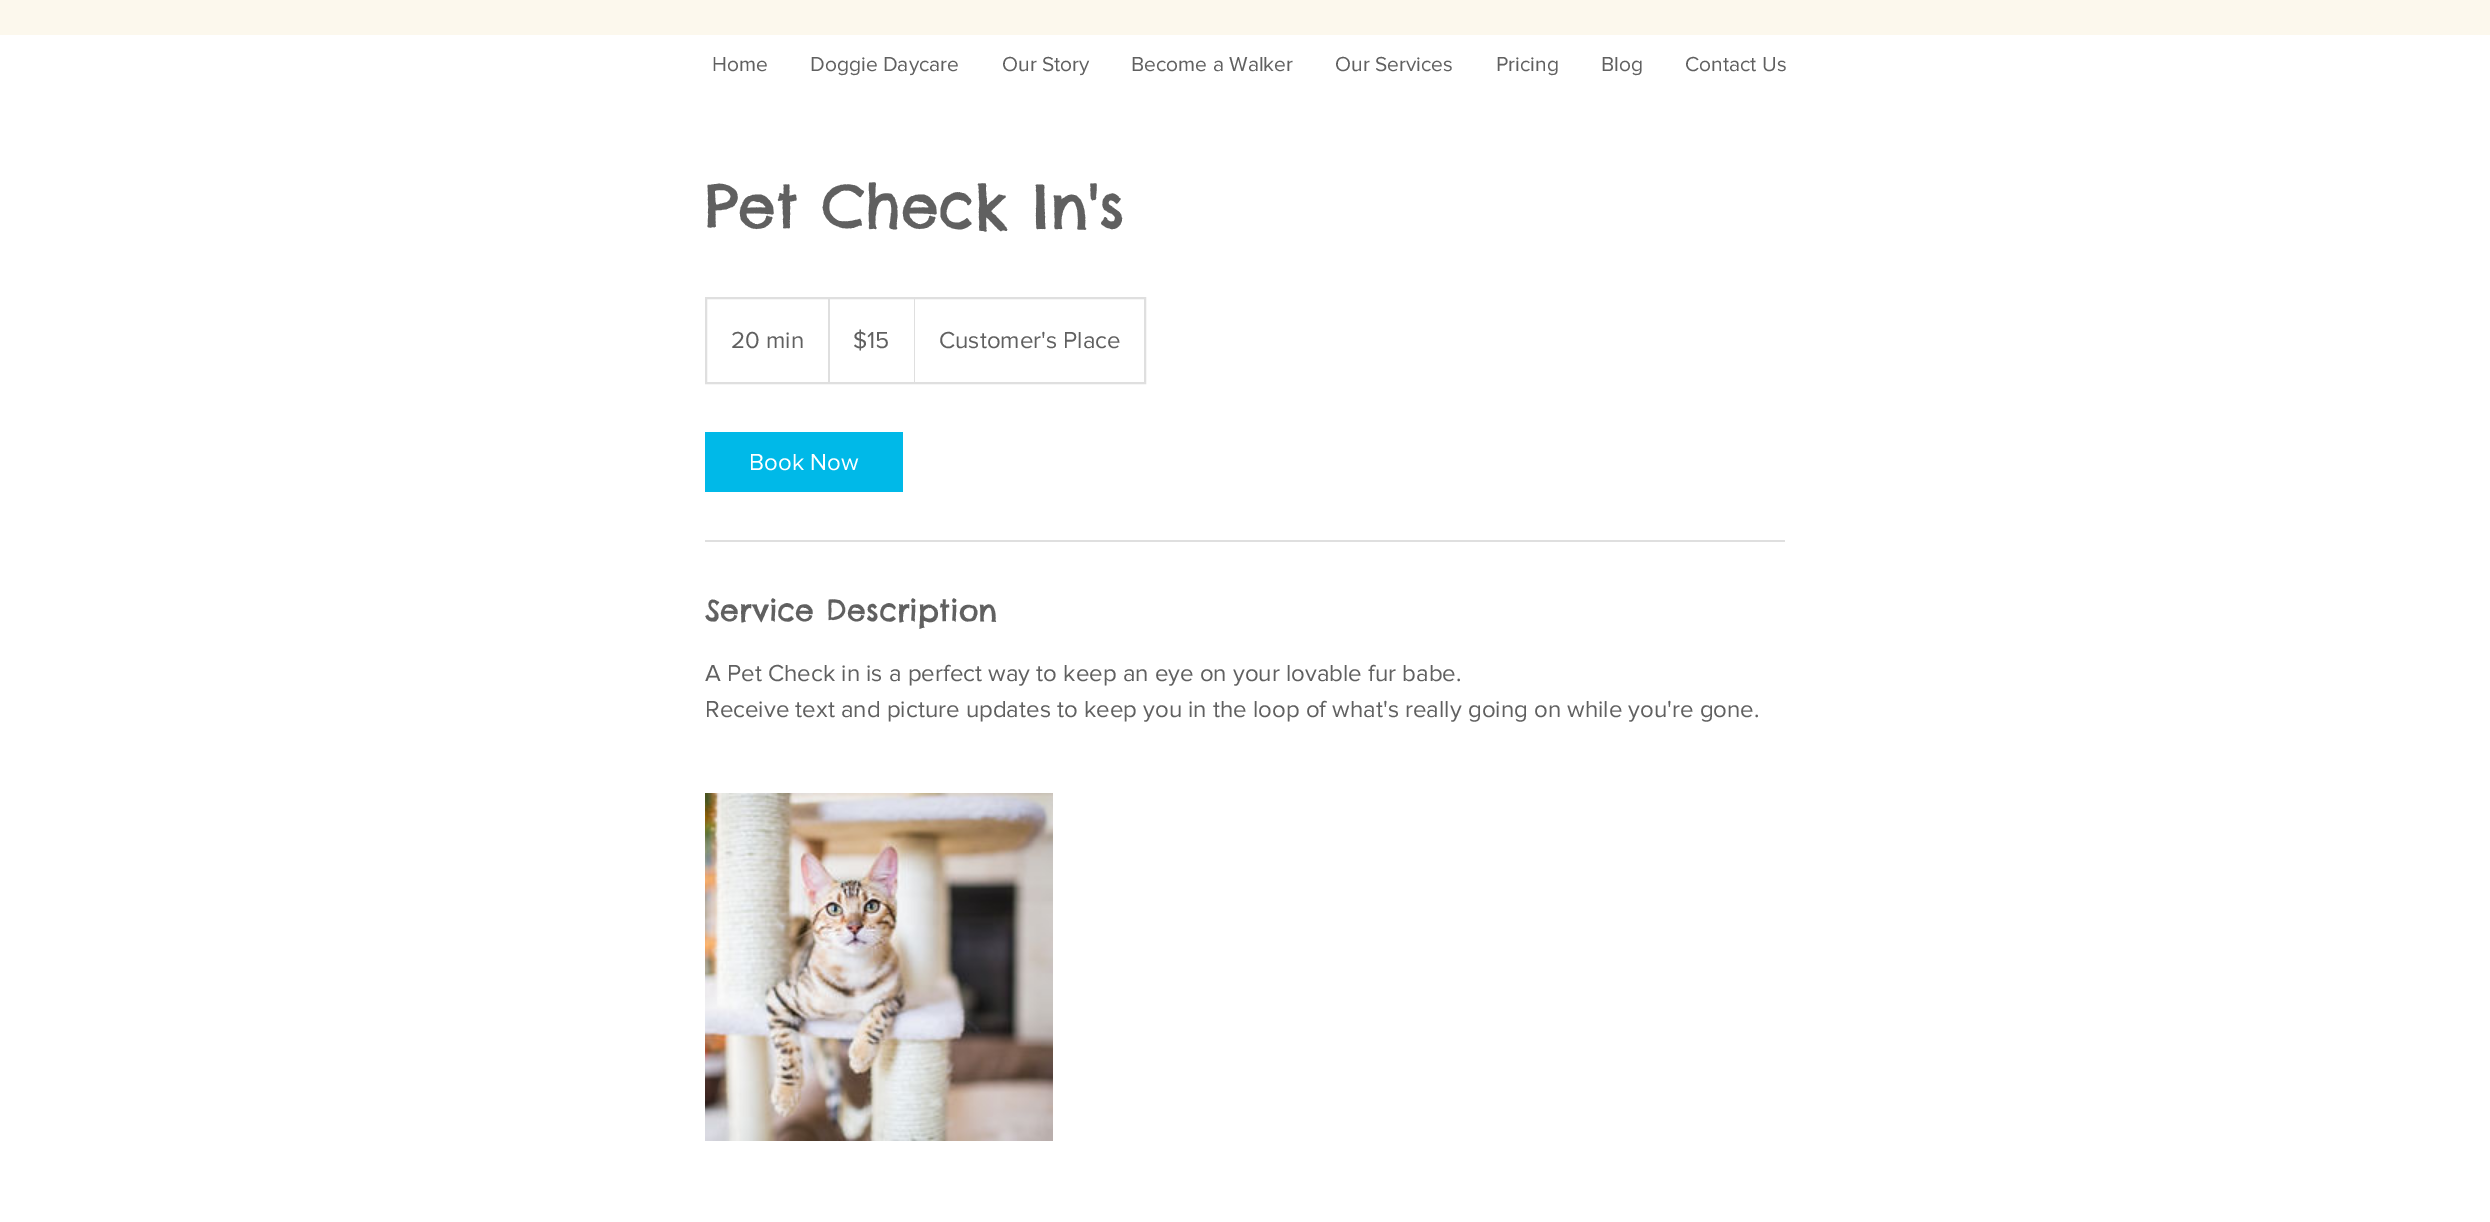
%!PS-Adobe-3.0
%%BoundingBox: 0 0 2490 1222
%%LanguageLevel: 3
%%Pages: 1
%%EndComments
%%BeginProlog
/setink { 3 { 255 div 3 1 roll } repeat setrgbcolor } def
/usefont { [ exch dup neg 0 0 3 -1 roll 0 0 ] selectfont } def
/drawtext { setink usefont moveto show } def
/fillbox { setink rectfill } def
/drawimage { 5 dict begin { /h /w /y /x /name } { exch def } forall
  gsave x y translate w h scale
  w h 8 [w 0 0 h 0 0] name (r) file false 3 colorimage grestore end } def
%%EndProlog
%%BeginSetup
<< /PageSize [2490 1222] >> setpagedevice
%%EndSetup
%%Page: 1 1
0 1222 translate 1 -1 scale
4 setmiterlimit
0 0 2490 1222 252 248 237 fillbox
0 35 2490 1187 255 255 255 fillbox
(Home) 712 71 /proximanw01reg-Regular 21 96 96 96 drawtext
(Doggie Daycare) 810 71 /proximanw01reg-Regular 21 96 96 96 drawtext
(Our Story) 1002 71 /proximanw01reg-Regular 21 96 96 96 drawtext
(Become a Walker) 1131 71 /proximanw01reg-Regular 21 96 96 96 drawtext
(Our Services) 1335 71 /proximanw01reg-Regular 21 96 96 96 drawtext
(Pricing) 1496 71 /proximanw01reg-Regular 21 96 96 96 drawtext
(Blog) 1601 71 /proximanw01reg-Regular 21 96 96 96 drawtext
(Contact Us) 1685 71 /proximanw01reg-Regular 21 96 96 96 drawtext
(Pet Check In's) 705 228 /ChelseaMarket-Regular 60 96 96 96 drawtext
223 223 223 setink
2 setlinewidth
706 298 439 85 rectstroke
(20 min) 731 348 /proximanw01reg-Regular 24 96 96 96 drawtext
gsave
707 299 438 84 rectclip
223 223 223 setink
828 382 moveto 828 297 lineto 830 298 lineto 830 382 lineto closepath fill
grestore
($15) 853 348 /proximanw01reg-Regular 24 96 96 96 drawtext
223 223 223 setink
914 382 moveto 914 297 lineto 915 298 lineto 915 382 lineto closepath fill
(Customer's Place) 939 348 /proximanw01reg-Regular 24 96 96 96 drawtext
705 432 198 60 0 185 232 fillbox
(Book Now) 749 470 /proximanw01reg-Regular 24 255 255 255 drawtext
705 540 1080 2 223 223 223 fillbox
(Service Description) 705 621 /ChelseaMarket-Regular 30 96 96 96 drawtext
(A Pet Check in is a perfect way to keep an eye on your lovable fur babe.) 705 681 /proximanw01reg-Regular 24 96 96 96 drawtext
(Receive text and picture updates to keep you in the loop of what's really going on while you're gone.) 705 717 /proximanw01reg-Regular 24 96 96 96 drawtext
(assets/img1.rgb) 705 793 348 348 drawimage
showpage
%%EOF
